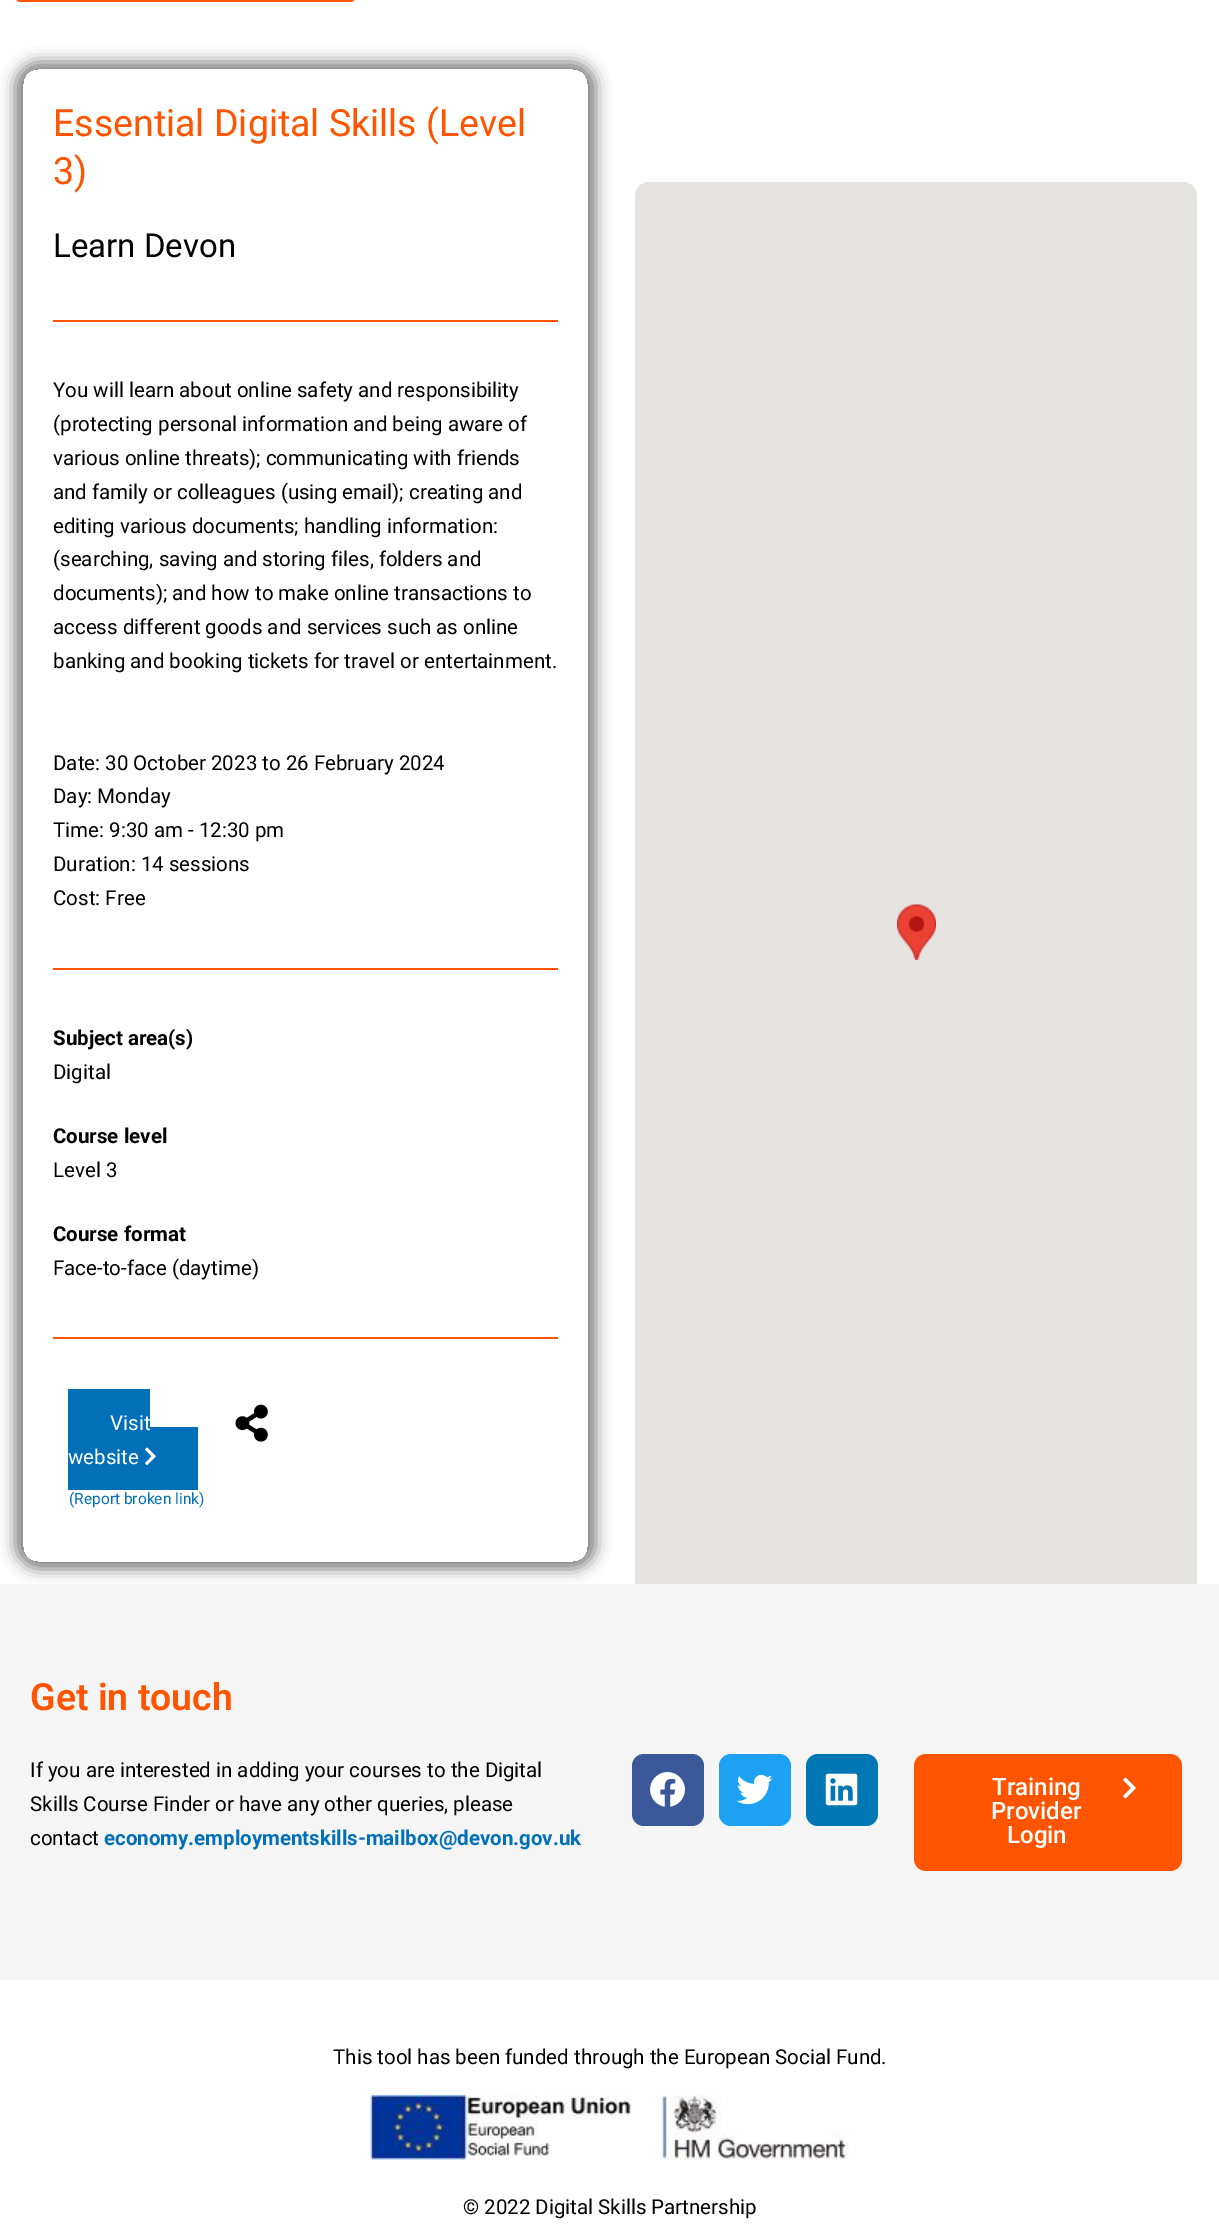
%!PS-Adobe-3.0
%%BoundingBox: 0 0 1219 2229
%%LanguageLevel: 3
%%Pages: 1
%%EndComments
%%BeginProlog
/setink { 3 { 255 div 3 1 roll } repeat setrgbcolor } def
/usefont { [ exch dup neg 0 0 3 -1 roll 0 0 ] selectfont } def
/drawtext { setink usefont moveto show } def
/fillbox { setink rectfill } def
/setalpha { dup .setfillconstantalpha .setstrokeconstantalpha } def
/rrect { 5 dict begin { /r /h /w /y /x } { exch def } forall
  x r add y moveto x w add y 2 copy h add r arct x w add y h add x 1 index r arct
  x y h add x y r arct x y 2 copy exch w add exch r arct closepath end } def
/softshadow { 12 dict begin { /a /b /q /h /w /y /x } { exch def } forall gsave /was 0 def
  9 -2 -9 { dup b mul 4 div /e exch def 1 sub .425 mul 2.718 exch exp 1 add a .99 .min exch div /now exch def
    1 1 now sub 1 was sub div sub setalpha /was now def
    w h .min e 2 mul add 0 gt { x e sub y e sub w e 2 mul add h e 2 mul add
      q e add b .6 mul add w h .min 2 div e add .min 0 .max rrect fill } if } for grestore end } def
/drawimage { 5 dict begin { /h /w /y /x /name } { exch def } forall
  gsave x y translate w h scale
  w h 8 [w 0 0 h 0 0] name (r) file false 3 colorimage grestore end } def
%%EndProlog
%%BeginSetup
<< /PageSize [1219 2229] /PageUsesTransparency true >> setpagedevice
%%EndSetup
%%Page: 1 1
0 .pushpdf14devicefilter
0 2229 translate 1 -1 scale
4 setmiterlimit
0 0 1219 2229 255 255 255 fillbox
255 85 0 setink
15 -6 341 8 6 rrect fill
gsave
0 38 moveto 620 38 lineto 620 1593 lineto 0 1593 lineto closepath 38 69 moveto 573 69 lineto 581.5 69 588 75.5 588 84 curveto 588 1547 lineto 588 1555.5 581.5 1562 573 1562 curveto 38 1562 lineto 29.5 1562 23 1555.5 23 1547 curveto 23 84 lineto 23 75.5 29.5 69 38 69 curveto closepath eoclip newpath
0 0 0 setink
15 62 581 1507 23 7.5 0.5 softshadow
grestore
(Essential Digital Skills \(Level) 53 136 /Roboto-Regular 37.5 255 85 0 drawtext
(3\)) 53 184 /Roboto-Regular 37.5 255 85 0 drawtext
(Learn Devon) 53 257 /Roboto-Regular 33 0 0 0 drawtext
53 320 505 2 255 85 0 fillbox
(You will learn about online safety and responsibility) 53 397 /Roboto-Regular 20.5 0 0 0 drawtext
(\(protecting personal information and being aware of) 53 431 /Roboto-Regular 20.5 0 0 0 drawtext
(various online threats\); communicating with friends) 53 465 /Roboto-Regular 20.5 0 0 0 drawtext
(and family or colleagues \(using email\); creating and) 53 499 /Roboto-Regular 20.5 0 0 0 drawtext
(editing various documents; handling information:) 53 533 /Roboto-Regular 20.5 0 0 0 drawtext
(\(searching, saving and storing files, folders and) 53 566 /Roboto-Regular 20.5 0 0 0 drawtext
(documents\); and how to make online transactions to) 53 600 /Roboto-Regular 20.5 0 0 0 drawtext
(access different goods and services such as online) 53 634 /Roboto-Regular 20.5 0 0 0 drawtext
(banking and booking tickets for travel or entertainment.) 53 668 /Roboto-Regular 20.5 0 0 0 drawtext
(Date: 30 October 2023 to 26 February 2024) 53 770 /Roboto-Regular 20.5 0 0 0 drawtext
(Day: Monday) 53 803 /Roboto-Regular 20.5 0 0 0 drawtext
(Time: 9:30 am - 12:30 pm) 53 837 /Roboto-Regular 20.5 0 0 0 drawtext
(Duration: 14 sessions) 53 871 /Roboto-Regular 20.5 0 0 0 drawtext
(Cost: Free) 53 905 /Roboto-Regular 20.5 0 0 0 drawtext
53 968 505 2 255 85 0 fillbox
(Subject area\(s\)) 53 1045 /Roboto-Bold 20.5 0 0 0 drawtext
(Digital) 53 1079 /Roboto-Regular 20.5 0 0 0 drawtext
(Course level) 53 1143 /Roboto-Bold 20.5 0 0 0 drawtext
(Level 3) 53 1177 /Roboto-Regular 20.5 0 0 0 drawtext
(Course format) 53 1241 /Roboto-Bold 20.5 0 0 0 drawtext
(Face-to-face \(daytime\)) 53 1275 /Roboto-Regular 20.5 0 0 0 drawtext
53 1337 505 2 255 85 0 fillbox
68 1389 82 38 1 112 185 fillbox
68 1427 130 63 1 112 185 fillbox
(Visit) 110 1430 /Roboto-Regular 20.5 255 255 255 drawtext
(website) 68 1464 /Roboto-Regular 20.5 255 255 255 drawtext
(assets/img1.rgb) 145 1447 11 18 drawimage
(\(Report broken link\)) 69 1504 /Roboto-Regular 15.5 1 112 185 drawtext
(assets/img2.rgb) 235 1404 33 38 drawimage
229 227 223 setink
635 182 562 1557 14 rrect fill
(assets/img3.rgb) 897 904 39 56 drawimage
0 1584 1219 396 245 245 245 fillbox
(Get in touch) 30 1710 /Roboto-SemiBold 37.5 255 85 0 drawtext
(If you are interested in adding your courses to the Digital) 30 1777 /Roboto-Regular 20.5 0 0 0 drawtext
(Skills Course Finder or have any other queries, please) 30 1811 /Roboto-Regular 20.5 0 0 0 drawtext
(contact) 30 1845 /Roboto-Regular 20.5 0 0 0 drawtext
(economy.employmentskills-mailbox@devon.gov.uk) 104 1845 /Roboto-Bold 20.5 1 112 185 drawtext
59 89 152 setink
632 1754 72 72 12 rrect fill
(assets/img4.rgb) 650 1772 35 35 drawimage
29 161 242 setink
719 1754 72 72 12 rrect fill
(assets/img5.rgb) 736 1774 37 31 drawimage
0 119 181 setink
806 1754 72 72 12 rrect fill
(assets/img6.rgb) 825 1773 33 33 drawimage
255 85 0 setink
914 1754 268 117 12 rrect fill
(Training) 992 1795 /Roboto-Medium 24 255 255 255 drawtext
(Provider) 991 1819 /Roboto-Medium 24 255 255 255 drawtext
(Login) 1007 1843 /Roboto-Medium 24 255 255 255 drawtext
(assets/img7.rgb) 1123 1777 13 22 drawimage
(This tool has been funded through the European Social Fund.) 333 2064 /Roboto-Regular 20.5 0 0 0 drawtext
(assets/img8.rgb) 370 2095 261 65 drawimage
(assets/img9.rgb) 661 2095 188 65 drawimage
(© 2022 Digital Skills Partnership) 463 2214 /Roboto-Regular 20.5 0 0 0 drawtext
.poppdf14devicefilter showpage
%%EOF
